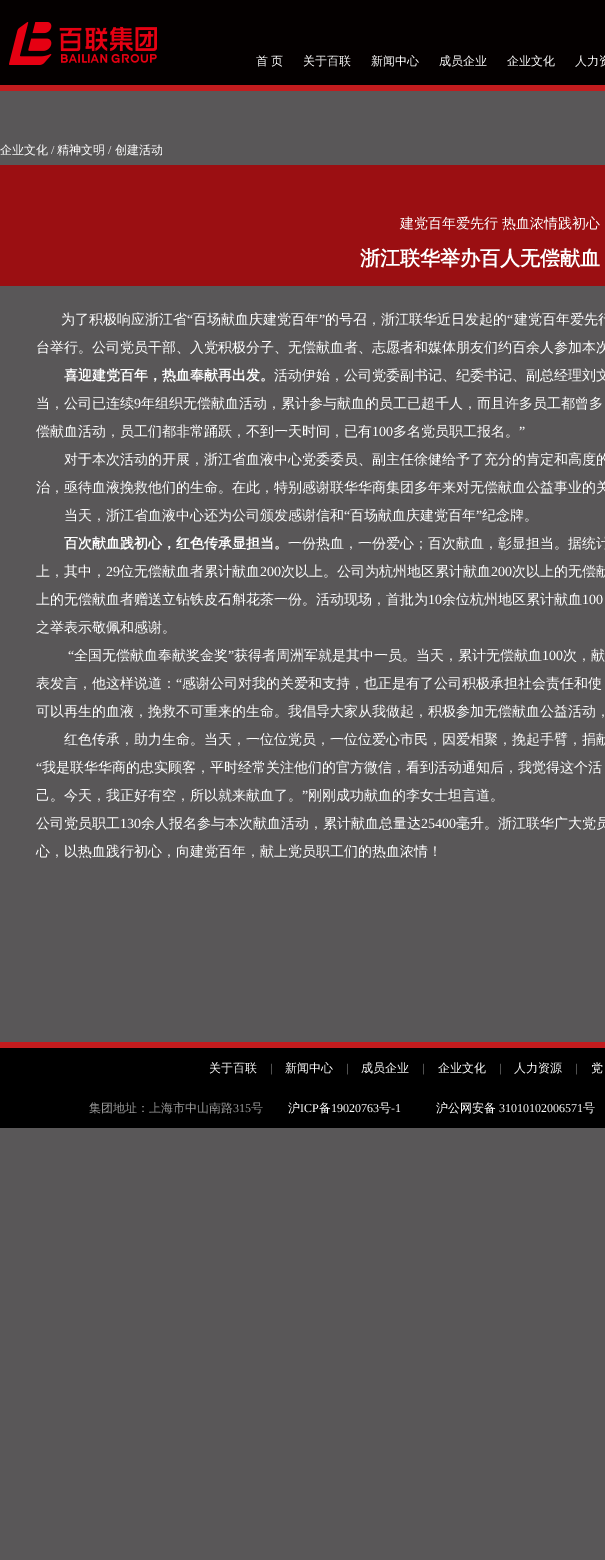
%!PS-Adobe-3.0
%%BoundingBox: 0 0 605 1560
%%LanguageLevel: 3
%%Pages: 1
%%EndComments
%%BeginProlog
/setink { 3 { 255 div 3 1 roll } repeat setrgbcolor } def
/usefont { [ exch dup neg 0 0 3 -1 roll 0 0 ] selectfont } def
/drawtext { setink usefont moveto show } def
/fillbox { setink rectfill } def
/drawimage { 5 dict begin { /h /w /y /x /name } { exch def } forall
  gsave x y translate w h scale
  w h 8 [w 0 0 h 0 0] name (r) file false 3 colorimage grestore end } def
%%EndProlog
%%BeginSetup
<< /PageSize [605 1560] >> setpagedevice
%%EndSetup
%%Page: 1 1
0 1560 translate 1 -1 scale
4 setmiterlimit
0 0 605 1560 89 87 88 fillbox
0 0 605 85 4 0 0 fillbox
0 85 605 6 195 28 30 fillbox
(assets/img1.rgb) 9 22 148 43 drawimage
(首) 256 65 /WenQuanYiZenHei-Medium 12 255 255 255 drawtext
(页) 271 65 /WenQuanYiZenHei-Medium 12 255 255 255 drawtext
(关于百联) 303 65 /WenQuanYiZenHei-Medium 12 255 255 255 drawtext
(新闻中心) 371 65 /WenQuanYiZenHei-Medium 12 255 255 255 drawtext
(成员企业) 439 65 /WenQuanYiZenHei-Medium 12 255 255 255 drawtext
(企业文化) 507 65 /WenQuanYiZenHei-Medium 12 255 255 255 drawtext
(人力资) 575 65 /WenQuanYiZenHei-Medium 12 255 255 255 drawtext
(企业文化) 0 154 /WenQuanYiZenHei-Medium 12 255 255 255 drawtext
(/) 51 154 /LiberationSerif-Regular 12 255 255 255 drawtext
(精神文明) 57 154 /WenQuanYiZenHei-Medium 12 255 255 255 drawtext
(/) 108 154 /LiberationSerif-Regular 12 255 255 255 drawtext
(创建活动) 115 154 /WenQuanYiZenHei-Medium 12 255 255 255 drawtext
0 165 605 121 155 15 18 fillbox
(建党百年爱先行) 400 228 /WenQuanYiZenHei-Medium 14 255 255 255 drawtext
(热血浓情践初心) 502 228 /WenQuanYiZenHei-Medium 14 255 255 255 drawtext
(浙江联华举办百人无偿献血) 360 265 /WenQuanYiZenHei-Bold 20 255 255 255 drawtext
(为了积极响应浙江省) 61 324 /WenQuanYiZenHei-Medium 14 255 255 255 drawtext
(“) 187 324 /LiberationSerif-Regular 14 255 255 255 drawtext
(百场献血庆建党百年) 193 324 /WenQuanYiZenHei-Medium 14 255 255 255 drawtext
(”) 319 324 /LiberationSerif-Regular 14 255 255 255 drawtext
(的号召，浙江联华近日发起的) 325 324 /WenQuanYiZenHei-Medium 14 255 255 255 drawtext
(“) 507 324 /LiberationSerif-Regular 14 255 255 255 drawtext
(建党百年爱先行) 514 324 /WenQuanYiZenHei-Medium 14 255 255 255 drawtext
(台举行。公司党员干部、入党积极分子、无偿献血者、志愿者和媒体朋友们约百余人参加本次) 36 352 /WenQuanYiZenHei-Medium 14 255 255 255 drawtext
(喜迎建党百年，热血奉献再出发。) 64 380 /WenQuanYiZenHei-Bold 14 255 255 255 drawtext
(活动伊始，公司党委副书记、纪委书记、副总经理刘文) 274 380 /WenQuanYiZenHei-Medium 14 255 255 255 drawtext
(当，公司已连续) 36 408 /WenQuanYiZenHei-Medium 14 255 255 255 drawtext
(9) 134 408 /LiberationSerif-Regular 14 255 255 255 drawtext
(年组织无偿献血活动，累计参与献血的员工已超千人，而且许多员工都曾多) 141 408 /WenQuanYiZenHei-Medium 14 255 255 255 drawtext
(偿献血活动，员工们都非常踊跃，不到一天时间，已有) 36 436 /WenQuanYiZenHei-Medium 14 255 255 255 drawtext
(100) 372 436 /LiberationSerif-Regular 14 255 255 255 drawtext
(多名党员职工报名。) 393 436 /WenQuanYiZenHei-Medium 14 255 255 255 drawtext
(”) 519 436 /LiberationSerif-Regular 14 255 255 255 drawtext
(对于本次活动的开展，浙江省血液中心党委委员、副主任徐健给予了充分的肯定和高度的) 64 464 /WenQuanYiZenHei-Medium 14 255 255 255 drawtext
(治，亟待血液挽救他们的生命。在此，特别感谢联华华商集团多年来对无偿献血公益事业的关) 36 492 /WenQuanYiZenHei-Medium 14 255 255 255 drawtext
(当天，浙江省血液中心还为公司颁发感谢信和) 64 520 /WenQuanYiZenHei-Medium 14 255 255 255 drawtext
(“) 344 520 /LiberationSerif-Regular 14 255 255 255 drawtext
(百场献血庆建党百年) 350 520 /WenQuanYiZenHei-Medium 14 255 255 255 drawtext
(”) 476 520 /LiberationSerif-Regular 14 255 255 255 drawtext
(纪念牌。) 482 520 /WenQuanYiZenHei-Medium 14 255 255 255 drawtext
(百次献血践初心，红色传承显担当。) 64 548 /WenQuanYiZenHei-Bold 14 255 255 255 drawtext
(一份热血，一份爱心；百次献血，彰显担当。据统计) 288 548 /WenQuanYiZenHei-Medium 14 255 255 255 drawtext
(上，其中，) 36 576 /WenQuanYiZenHei-Medium 14 255 255 255 drawtext
(29) 106 576 /LiberationSerif-Regular 14 255 255 255 drawtext
(位无偿献血者累计献血) 120 576 /WenQuanYiZenHei-Medium 14 255 255 255 drawtext
(200) 260 576 /LiberationSerif-Regular 14 255 255 255 drawtext
(次以上。公司为杭州地区累计献血) 281 576 /WenQuanYiZenHei-Medium 14 255 255 255 drawtext
(200) 491 576 /LiberationSerif-Regular 14 255 255 255 drawtext
(次以上的无偿献) 512 576 /WenQuanYiZenHei-Medium 14 255 255 255 drawtext
(上的无偿献血者赠送立钻铁皮石斛花茶一份。活动现场，首批为) 36 604 /WenQuanYiZenHei-Medium 14 255 255 255 drawtext
(10) 428 604 /LiberationSerif-Regular 14 255 255 255 drawtext
(余位杭州地区累计献血) 442 604 /WenQuanYiZenHei-Medium 14 255 255 255 drawtext
(100) 582 604 /LiberationSerif-Regular 14 255 255 255 drawtext
(之举表示敬佩和感谢。) 36 632 /WenQuanYiZenHei-Medium 14 255 255 255 drawtext
(“) 68 660 /LiberationSerif-Regular 14 255 255 255 drawtext
(全国无偿献血奉献奖金奖) 74 660 /WenQuanYiZenHei-Medium 14 255 255 255 drawtext
(”) 228 660 /LiberationSerif-Regular 14 255 255 255 drawtext
(获得者周洲军就是其中一员。当天，累计无偿献血) 234 660 /WenQuanYiZenHei-Medium 14 255 255 255 drawtext
(100) 542 660 /LiberationSerif-Regular 14 255 255 255 drawtext
(次，献) 563 660 /WenQuanYiZenHei-Medium 14 255 255 255 drawtext
(表发言，他这样说道：) 36 688 /WenQuanYiZenHei-Medium 14 255 255 255 drawtext
(“) 176 688 /LiberationSerif-Regular 14 255 255 255 drawtext
(感谢公司对我的关爱和支持，也正是有了公司积极承担社会责任和使) 182 688 /WenQuanYiZenHei-Medium 14 255 255 255 drawtext
(可以再生的血液，挽救不可重来的生命。我倡导大家从我做起，积极参加无偿献血公益活动，) 36 716 /WenQuanYiZenHei-Medium 14 255 255 255 drawtext
(红色传承，助力生命。当天，一位位党员，一位位爱心市民，因爱相聚，挽起手臂，捐献) 64 744 /WenQuanYiZenHei-Medium 14 255 255 255 drawtext
(“) 36 772 /LiberationSerif-Regular 14 255 255 255 drawtext
(我是联华华商的忠实顾客，平时经常关注他们的官方微信，看到活动通知后，我觉得这个活) 42 772 /WenQuanYiZenHei-Medium 14 255 255 255 drawtext
(己。今天，我正好有空，所以就来献血了。) 36 800 /WenQuanYiZenHei-Medium 14 255 255 255 drawtext
(”) 302 800 /LiberationSerif-Regular 14 255 255 255 drawtext
(刚刚成功献血的李女士坦言道。) 308 800 /WenQuanYiZenHei-Medium 14 255 255 255 drawtext
(公司党员职工) 36 828 /WenQuanYiZenHei-Medium 14 255 255 255 drawtext
(130) 120 828 /LiberationSerif-Regular 14 255 255 255 drawtext
(余人报名参与本次献血活动，累计献血总量达) 141 828 /WenQuanYiZenHei-Medium 14 255 255 255 drawtext
(25400) 421 828 /LiberationSerif-Regular 14 255 255 255 drawtext
(毫升。浙江联华广大党员) 456 828 /WenQuanYiZenHei-Medium 14 255 255 255 drawtext
(心，以热血践行初心，向建党百年，献上党员职工们的热血浓情！) 36 856 /WenQuanYiZenHei-Medium 14 255 255 255 drawtext
0 1048 605 80 0 0 0 fillbox
0 1042 605 6 195 28 30 fillbox
(关于百联) 209 1072 /WenQuanYiZenHei-Medium 12 255 255 255 drawtext
(|) 270 1072 /LiberationSerif-Regular 12 153 153 153 drawtext
(新闻中心) 285 1072 /WenQuanYiZenHei-Medium 12 255 255 255 drawtext
(|) 346 1072 /LiberationSerif-Regular 12 153 153 153 drawtext
(成员企业) 361 1072 /WenQuanYiZenHei-Medium 12 255 255 255 drawtext
(|) 422 1072 /LiberationSerif-Regular 12 153 153 153 drawtext
(企业文化) 438 1072 /WenQuanYiZenHei-Medium 12 255 255 255 drawtext
(|) 499 1072 /LiberationSerif-Regular 12 153 153 153 drawtext
(人力资源) 514 1072 /WenQuanYiZenHei-Medium 12 255 255 255 drawtext
(|) 575 1072 /LiberationSerif-Regular 12 153 153 153 drawtext
(党) 591 1072 /WenQuanYiZenHei-Medium 12 255 255 255 drawtext
(集团地址：上海市中山南路) 89 1112 /WenQuanYiZenHei-Medium 12 153 153 153 drawtext
(315) 233 1112 /LiberationSerif-Regular 12 153 153 153 drawtext
(号) 251 1112 /WenQuanYiZenHei-Medium 12 153 153 153 drawtext
(沪) 288 1112 /WenQuanYiZenHei-Medium 12 255 255 255 drawtext
(ICP) 300 1112 /LiberationSerif-Regular 12 255 255 255 drawtext
(备) 319 1112 /WenQuanYiZenHei-Medium 12 255 255 255 drawtext
(19020763) 331 1112 /LiberationSerif-Regular 12 255 255 255 drawtext
(号) 379 1112 /WenQuanYiZenHei-Medium 12 255 255 255 drawtext
(-1) 391 1112 /LiberationSerif-Regular 12 255 255 255 drawtext
(沪公网安备) 436 1112 /WenQuanYiZenHei-Medium 12 255 255 255 drawtext
(31010102006571) 499 1112 /LiberationSerif-Regular 12 255 255 255 drawtext
(号) 583 1112 /WenQuanYiZenHei-Medium 12 255 255 255 drawtext
showpage
%%EOF
